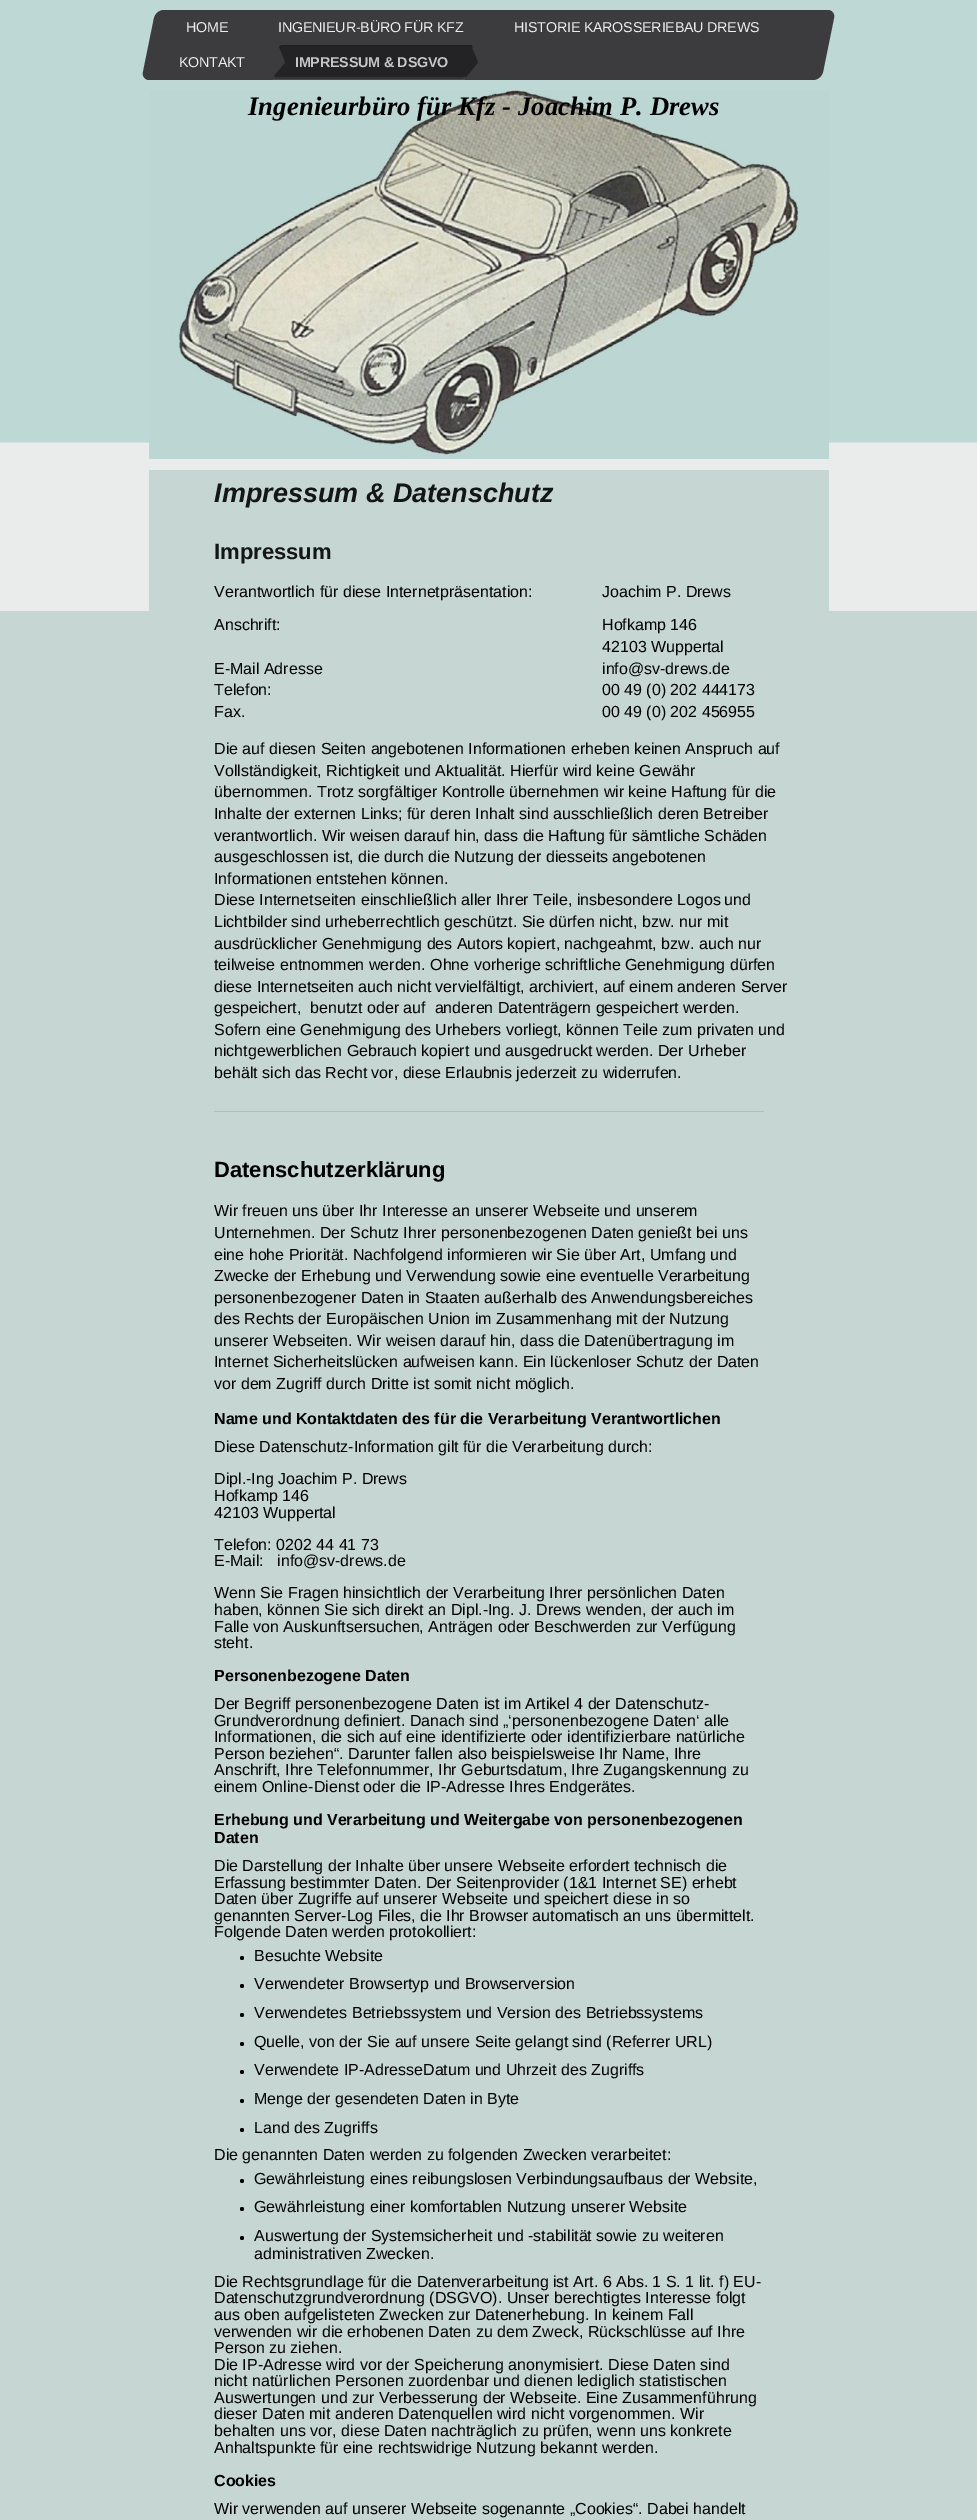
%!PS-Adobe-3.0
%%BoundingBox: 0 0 977 2520
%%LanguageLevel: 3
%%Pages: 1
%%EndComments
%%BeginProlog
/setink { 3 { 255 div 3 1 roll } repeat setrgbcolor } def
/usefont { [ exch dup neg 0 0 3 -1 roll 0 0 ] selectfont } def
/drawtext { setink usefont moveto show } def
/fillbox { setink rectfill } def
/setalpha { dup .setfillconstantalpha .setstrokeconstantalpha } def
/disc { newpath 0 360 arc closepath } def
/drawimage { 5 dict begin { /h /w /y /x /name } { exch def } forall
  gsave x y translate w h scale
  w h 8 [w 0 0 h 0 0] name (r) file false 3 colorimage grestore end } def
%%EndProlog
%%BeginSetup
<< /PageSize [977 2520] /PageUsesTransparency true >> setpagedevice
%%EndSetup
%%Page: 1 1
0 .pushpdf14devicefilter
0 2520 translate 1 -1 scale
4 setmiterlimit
0 0 977 2520 198 214 210 fillbox
(assets/img1.rgb) 0 0 977 611 drawimage
60 60 63 setink
164 10 moveto 828 10 lineto 832 10 835 14 834 18 curveto 823 72 lineto 822 76 818 80 813 80 curveto 149 80 lineto 145 80 142 76 143 72 curveto 154 18 lineto 155 14 159 10 164 10 curveto closepath fill
(HOME) 186 32 /LiberationSans-Regular 14.3 236 236 236 drawtext
278 32 moveto -0.2 0 (INGENIEUR-BÜRO FÜR KFZ) ashow
514 32 moveto -0.2 0 (HISTORIE KAROSSERIEBAU DREWS) ashow
179 67 moveto -0.25 0 (KONTAKT) ashow
35 35 37 setink
283 45 moveto 470 45 lineto 472 45 473 46 472 48 curveto 466 77 lineto 466 78 464 80 462 80 curveto 275 80 lineto 274 80 272 78 273 77 curveto 279 48 lineto 279 46 281 45 283 45 curveto closepath fill
0.15 setalpha
0 0 0 setink
283 46 moveto 471 46 lineto 472 47 lineto 472 46 471 45 470 45 curveto 283 45 lineto 281 45 279 46 279 48 curveto 273 77 lineto 273 78 273 79 274 79 curveto 280 49 lineto 280 47 282 46 283 46 curveto closepath fill
0.08 setalpha
255 255 255 setink
280 46 moveto 277 59 lineto closepath 273 75 moveto 273 77 272 80 275 80 curveto 464 80 lineto 466 79 466 77 467 74 curveto 466 76 465 77 463 77 curveto 276 77 lineto 275 77 274 76 273 75 curveto closepath eofill
0.1 setalpha
273 76 moveto 273 77 273 79 274 80 curveto 462 80 lineto 466 80 467 75 467 72 curveto 472 47 lineto 466 76 lineto 466 77 464 79 463 79 curveto 275 79 lineto 274 79 273 77 273 76 curveto closepath fill
1 setalpha
60 60 63 setink
271.5 78.5 moveto 278.5 46.5 lineto 285 62.5 lineto closepath fill
/LiberationSans-Bold 14.3 usefont
198 198 200 setink
295 67 moveto -0.2 0 (IMPRESSUM & DSGVO) ashow
35 35 37 setink
465 78.5 moveto 471.5 46.5 lineto 478 62.5 lineto closepath fill
(assets/img2.rgb) 149 90 680 369 drawimage
/LiberationSerif-BoldItalic 26.6 usefont
0 0 0 setink
248 115 moveto 0.1 0 (Ingenieurbüro für Kfz - Joachim P. Drews) ashow
149 470 680 141 198 214 210 fillbox
(Impressum & Datenschutz) 214 502 /LiberationSans-BoldItalic 27 20 21 21 drawtext
(Impressum) 214 559 /LiberationSans-Bold 22 20 21 21 drawtext
(Verantwortlich für diese Internetpräsentation:) 214 597 /LiberationSans-Regular 16 0 0 0 drawtext
(Joachim P. Drews) 602 597 /LiberationSans-Regular 16 0 0 0 drawtext
(Anschrift:) 214 630 /LiberationSans-Regular 16 0 0 0 drawtext
(Hofkamp 146) 602 630 /LiberationSans-Regular 16 0 0 0 drawtext
(42103 Wuppertal) 602 652 /LiberationSans-Regular 16 0 0 0 drawtext
(E-Mail Adresse) 214 674 /LiberationSans-Regular 16 0 0 0 drawtext
(info@sv-drews.de) 602 674 /LiberationSans-Regular 16 0 0 0 drawtext
(Telefon:) 214 695 /LiberationSans-Regular 16 0 0 0 drawtext
(00 49 \(0\) 202 444173) 602 695 /LiberationSans-Regular 16 0 0 0 drawtext
(Fax.) 214 717 /LiberationSans-Regular 16 0 0 0 drawtext
(00 49 \(0\) 202 456955) 602 717 /LiberationSans-Regular 16 0 0 0 drawtext
(Die auf diesen Seiten angebotenen Informationen erheben keinen Anspruch auf) 214 754 /LiberationSans-Regular 16 0 0 0 drawtext
(Vollständigkeit, Richtigkeit und Aktualität. Hierfür wird keine Gewähr) 214 776 /LiberationSans-Regular 16 0 0 0 drawtext
(übernommen. Trotz sorgfältiger Kontrolle übernehmen wir keine Haftung für die) 214 797 /LiberationSans-Regular 16 0 0 0 drawtext
(Inhalte der externen Links; für deren Inhalt sind ausschließlich deren Betreiber) 214 819 /LiberationSans-Regular 16 0 0 0 drawtext
(verantwortlich. Wir weisen darauf hin, dass die Haftung für sämtliche Schäden) 214 841 /LiberationSans-Regular 16 0 0 0 drawtext
(ausgeschlossen ist, die durch die Nutzung der diesseits angebotenen) 214 862 /LiberationSans-Regular 16 0 0 0 drawtext
(Informationen entstehen können.) 214 884 /LiberationSans-Regular 16 0 0 0 drawtext
(Diese Internetseiten einschließlich aller Ihrer Teile, insbesondere Logos) 214 905 /LiberationSans-Regular 16 0 0 0 drawtext
(und) 724 905 /LiberationSans-Regular 16 0 0 0 drawtext
(Lichtbilder sind urheberrechtlich geschützt. Sie dürfen nicht, bzw. nur mit) 214 927 /LiberationSans-Regular 16 0 0 0 drawtext
(ausdrücklicher Genehmigung des Autors kopiert, nachgeahmt, bzw. auch nur) 214 949 /LiberationSans-Regular 16 0 0 0 drawtext
(teilweise entnommen werden. Ohne vorherige schriftliche Genehmigung dürfen) 214 970 /LiberationSans-Regular 16 0 0 0 drawtext
(diese Internetseiten auch nicht vervielfältigt, archiviert, auf einem anderen Server) 214 992 /LiberationSans-Regular 16 0 0 0 drawtext
(gespeichert,  benutzt oder auf  anderen Datenträgern gespeichert werden.) 214 1013 /LiberationSans-Regular 16 0 0 0 drawtext
(Sofern eine Genehmigung des Urhebers vorliegt, können Teile zum privaten und) 214 1035 /LiberationSans-Regular 16 0 0 0 drawtext
(nichtgewerblichen Gebrauch kopiert und ausgedruckt werden. Der Urheber) 214 1056 /LiberationSans-Regular 16 0 0 0 drawtext
(behält sich das Recht vor, diese Erlaubnis jederzeit zu widerrufen.) 214 1078 /LiberationSans-Regular 16 0 0 0 drawtext
214 1111 550 1 186 186 186 fillbox
(Datenschutzerklärung) 214 1177 /LiberationSans-Bold 22 0 0 0 drawtext
(Wir freuen uns über Ihr Interesse an unserer Webseite und unserem) 214 1216 /LiberationSans-Regular 16 0 0 0 drawtext
(Unternehmen. Der Schutz Ihrer personenbezogenen Daten genießt bei uns) 214 1238 /LiberationSans-Regular 16 0 0 0 drawtext
(eine hohe Priorität. Nachfolgend informieren wir Sie über Art, Umfang und) 214 1260 /LiberationSans-Regular 16 0 0 0 drawtext
(Zwecke der Erhebung und Verwendung sowie eine eventuelle Verarbeitung) 214 1281 /LiberationSans-Regular 16 0 0 0 drawtext
(personenbezogener Daten in Staaten außerhalb des Anwendungsbereiches) 214 1303 /LiberationSans-Regular 16 0 0 0 drawtext
(des Rechts der Europäischen Union im Zusammenhang mit der Nutzung) 214 1324 /LiberationSans-Regular 16 0 0 0 drawtext
(unserer Webseiten. Wir weisen darauf hin, dass die Datenübertragung im) 214 1346 /LiberationSans-Regular 16 0 0 0 drawtext
(Internet Sicherheitslücken aufweisen kann. Ein lückenloser Schutz der Daten) 214 1367 /LiberationSans-Regular 16 0 0 0 drawtext
(vor dem Zugriff durch Dritte ist somit nicht möglich.) 214 1389 /LiberationSans-Regular 16 0 0 0 drawtext
(Name und Kontaktdaten des für die Verarbeitung Verantwortlichen) 214 1424 /LiberationSans-Bold 16 0 0 0 drawtext
(Diese Datenschutz-Information gilt für die Verarbeitung durch:) 214 1452 /LiberationSans-Regular 16 0 0 0 drawtext
(Dipl.-Ing Joachim P. Drews) 214 1484 /LiberationSans-Regular 16 0 0 0 drawtext
(Hofkamp 146) 214 1501 /LiberationSans-Regular 16 0 0 0 drawtext
(42103 Wuppertal) 214 1518 /LiberationSans-Regular 16 0 0 0 drawtext
(Telefon: 0202 44 41 73) 214 1550 /LiberationSans-Regular 16 0 0 0 drawtext
(E-Mail:   info@sv-drews.de) 214 1566 /LiberationSans-Regular 16 0 0 0 drawtext
(Wenn Sie Fragen hinsichtlich der Verarbeitung Ihrer persönlichen Daten) 214 1598 /LiberationSans-Regular 16 0 0 0 drawtext
(haben, können Sie sich direkt an Dipl.-Ing. J. Drews wenden, der auch im) 214 1615 /LiberationSans-Regular 16 0 0 0 drawtext
(Falle von Auskunftsersuchen, Anträgen oder Beschwerden zur Verfügung) 214 1632 /LiberationSans-Regular 16 0 0 0 drawtext
(steht.) 214 1648 /LiberationSans-Regular 16 0 0 0 drawtext
(Personenbezogene Daten) 214 1681 /LiberationSans-Bold 16 0 0 0 drawtext
(Der Begriff personenbezogene Daten ist im Artikel 4 der Datenschutz-) 214 1709 /LiberationSans-Regular 16 0 0 0 drawtext
(Grundverordnung definiert. Danach sind „‘personenbezogene Daten‘ alle) 214 1726 /LiberationSans-Regular 16 0 0 0 drawtext
(Informationen, die sich auf eine identifizierte oder identifizierbare natürliche) 214 1742 /LiberationSans-Regular 16 0 0 0 drawtext
(Person beziehen“. Darunter fallen also beispielsweise Ihr Name, Ihre) 214 1759 /LiberationSans-Regular 16 0 0 0 drawtext
(Anschrift, Ihre Telefonnummer, Ihr Geburtsdatum, Ihre Zugangskennung zu) 214 1775 /LiberationSans-Regular 16 0 0 0 drawtext
(einem Online-Dienst oder die IP-Adresse Ihres Endgerätes.) 214 1792 /LiberationSans-Regular 16 0 0 0 drawtext
(Erhebung und Verarbeitung und Weitergabe von personenbezogenen) 214 1825 /LiberationSans-Bold 16 0 0 0 drawtext
(Daten) 214 1843 /LiberationSans-Bold 16 0 0 0 drawtext
(Die Darstellung der Inhalte über unsere Webseite erfordert technisch die) 214 1871 /LiberationSans-Regular 16 0 0 0 drawtext
(Erfassung bestimmter Daten. Der Seitenprovider \(1&1 Internet SE\) erhebt) 214 1888 /LiberationSans-Regular 16 0 0 0 drawtext
(Daten über Zugriffe auf unserer Webseite und speichert diese in so) 214 1904 /LiberationSans-Regular 16 0 0 0 drawtext
(genannten Server-Log Files, die Ihr Browser automatisch an uns übermittelt.) 214 1921 /LiberationSans-Regular 16 0 0 0 drawtext
(Folgende Daten werden protokolliert:) 214 1937 /LiberationSans-Regular 16 0 0 0 drawtext
242 1958 2 disc fill
(Besuchte Website) 254 1961 /LiberationSans-Regular 16 0 0 0 drawtext
242 1986 2 disc fill
(Verwendeter Browsertyp und Browserversion) 254 1989 /LiberationSans-Regular 16 0 0 0 drawtext
242 2015 2 disc fill
(Verwendetes Betriebssystem und Version des Betriebssystems) 254 2018 /LiberationSans-Regular 16 0 0 0 drawtext
242 2044 2 disc fill
(Quelle, von der Sie auf unsere Seite gelangt sind \(Referrer URL\)) 254 2047 /LiberationSans-Regular 16 0 0 0 drawtext
242 2072 2 disc fill
(Verwendete IP-AdresseDatum und Uhrzeit des Zugriffs) 254 2075 /LiberationSans-Regular 16 0 0 0 drawtext
242 2101 2 disc fill
(Menge der gesendeten Daten in Byte) 254 2104 /LiberationSans-Regular 16 0 0 0 drawtext
242 2130 2 disc fill
(Land des Zugriffs) 254 2133 /LiberationSans-Regular 16 0 0 0 drawtext
(Die genannten Daten werden zu folgenden Zwecken verarbeitet:) 214 2160 /LiberationSans-Regular 16 0 0 0 drawtext
242 2181 2 disc fill
(Gewährleistung eines reibungslosen Verbindungsaufbaus der Website,) 254 2184 /LiberationSans-Regular 16 0 0 0 drawtext
242 2209 2 disc fill
(Gewährleistung einer komfortablen Nutzung unserer Website) 254 2212 /LiberationSans-Regular 16 0 0 0 drawtext
242 2238 2 disc fill
(Auswertung der Systemsicherheit und -stabilität sowie zu weiteren) 254 2241 /LiberationSans-Regular 16 0 0 0 drawtext
(administrativen Zwecken.) 254 2259 /LiberationSans-Regular 16 0 0 0 drawtext
(Die Rechtsgrundlage für die Datenverarbeitung ist Art. 6 Abs. 1 S. 1 lit. f\) EU-) 214 2287 /LiberationSans-Regular 16 0 0 0 drawtext
(Datenschutzgrundverordnung \(DSGVO\). Unser berechtigtes Interesse folgt) 214 2303 /LiberationSans-Regular 16 0 0 0 drawtext
(aus oben aufgelisteten Zwecken zur Datenerhebung. In keinem Fall) 214 2320 /LiberationSans-Regular 16 0 0 0 drawtext
(verwenden wir die erhobenen Daten zu dem Zweck, Rückschlüsse auf Ihre) 214 2337 /LiberationSans-Regular 16 0 0 0 drawtext
(Person zu ziehen.) 214 2353 /LiberationSans-Regular 16 0 0 0 drawtext
(Die IP-Adresse wird vor der Speicherung anonymisiert. Diese Daten sind) 214 2370 /LiberationSans-Regular 16 0 0 0 drawtext
(nicht natürlichen Personen zuordenbar und dienen lediglich statistischen) 214 2386 /LiberationSans-Regular 16 0 0 0 drawtext
(Auswertungen und zur Verbesserung der Webseite. Eine Zusammenführung) 214 2403 /LiberationSans-Regular 16 0 0 0 drawtext
(dieser Daten mit anderen Datenquellen wird nicht vorgenommen. Wir) 214 2419 /LiberationSans-Regular 16 0 0 0 drawtext
(behalten uns vor, diese Daten nachträglich zu prüfen, wenn uns konkrete) 214 2436 /LiberationSans-Regular 16 0 0 0 drawtext
(Anhaltspunkte für eine rechtswidrige Nutzung bekannt werden.) 214 2453 /LiberationSans-Regular 16 0 0 0 drawtext
(Cookies) 214 2486 /LiberationSans-Bold 16 0 0 0 drawtext
(Wir verwenden auf unserer Webseite sogenannte „Cookies“. Dabei handelt) 214 2514 /LiberationSans-Regular 16 0 0 0 drawtext
.poppdf14devicefilter showpage
%%EOF
